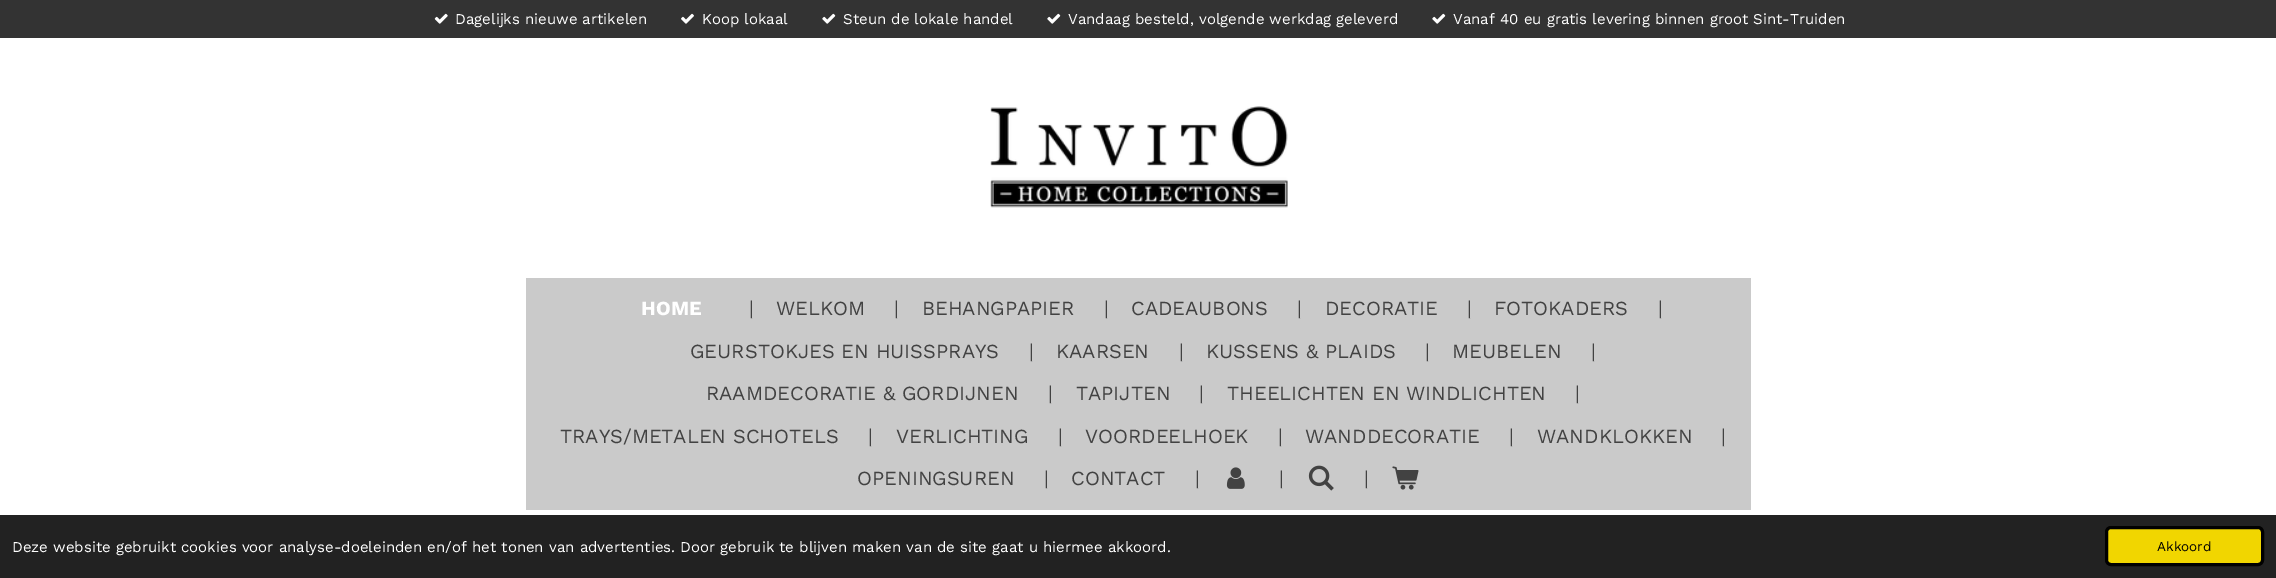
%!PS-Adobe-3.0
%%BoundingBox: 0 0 2276 578
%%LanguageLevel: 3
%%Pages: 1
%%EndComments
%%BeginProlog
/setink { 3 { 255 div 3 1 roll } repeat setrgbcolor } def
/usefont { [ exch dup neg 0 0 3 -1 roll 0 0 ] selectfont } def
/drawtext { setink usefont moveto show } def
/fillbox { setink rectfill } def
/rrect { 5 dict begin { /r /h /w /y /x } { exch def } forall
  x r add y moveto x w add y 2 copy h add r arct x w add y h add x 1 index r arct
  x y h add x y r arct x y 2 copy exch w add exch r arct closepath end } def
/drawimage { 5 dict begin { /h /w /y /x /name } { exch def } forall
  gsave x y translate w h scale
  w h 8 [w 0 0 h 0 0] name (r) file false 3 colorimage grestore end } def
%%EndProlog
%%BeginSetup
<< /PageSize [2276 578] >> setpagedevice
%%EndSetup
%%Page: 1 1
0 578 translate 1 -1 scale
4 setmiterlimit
0 0 2276 578 255 255 255 fillbox
0 0 2276 38 51 51 51 fillbox
(assets/img1.rgb) 434 13 14 11 drawimage
(Dagelijks nieuwe artikelen) 455 24 /WorkSans-Regular 15 255 255 255 drawtext
(assets/img2.rgb) 681 13 13 11 drawimage
(Koop lokaal) 702 24 /WorkSans-Regular 15 255 255 255 drawtext
(assets/img3.rgb) 822 13 14 11 drawimage
(Steun de lokale handel) 843 24 /WorkSans-Regular 15 255 255 255 drawtext
(assets/img3.rgb) 1047 13 14 11 drawimage
(Vandaag besteld, volgende werkdag geleverd) 1068 24 /WorkSans-Regular 15 255 255 255 drawtext
(assets/img3.rgb) 1432 13 14 11 drawimage
(Vanaf 40 eu gratis levering binnen groot Sint-Truiden) 1453 24 /WorkSans-Regular 15 255 255 255 drawtext
(assets/img4.rgb) 990 106 298 102 drawimage
526 278 1225 232 202 202 202 fillbox
(HOME) 641 315 /WorkSans-Bold 20 255 255 255 drawtext
(|) 749 315 /WorkSans-Regular 20 66 66 66 drawtext
(WELKOM) 776 315 /WorkSans-Regular 20 66 66 66 drawtext
(|) 894 315 /WorkSans-Regular 20 66 66 66 drawtext
(BEHANGPAPIER) 922 315 /WorkSans-Regular 20 66 66 66 drawtext
(|) 1104 315 /WorkSans-Regular 20 66 66 66 drawtext
(CADEAUBONS) 1131 315 /WorkSans-Regular 20 66 66 66 drawtext
(|) 1297 315 /WorkSans-Regular 20 66 66 66 drawtext
(DECORATIE) 1325 315 /WorkSans-Regular 20 66 66 66 drawtext
(|) 1467 315 /WorkSans-Regular 20 66 66 66 drawtext
(FOTOKADERS) 1494 315 /WorkSans-Regular 20 66 66 66 drawtext
(|) 1658 315 /WorkSans-Regular 20 66 66 66 drawtext
(GEURSTOKJES EN HUISSPRAYS) 690 358 /WorkSans-Regular 20 66 66 66 drawtext
(|) 1029 358 /WorkSans-Regular 20 66 66 66 drawtext
(KAARSEN) 1056 358 /WorkSans-Regular 20 66 66 66 drawtext
(|) 1179 358 /WorkSans-Regular 20 66 66 66 drawtext
(KUSSENS & PLAIDS) 1206 358 /WorkSans-Regular 20 66 66 66 drawtext
(|) 1425 358 /WorkSans-Regular 20 66 66 66 drawtext
(MEUBELEN) 1452 358 /WorkSans-Regular 20 66 66 66 drawtext
(|) 1591 358 /WorkSans-Regular 20 66 66 66 drawtext
(RAAMDECORATIE & GORDIJNEN) 706 400 /WorkSans-Regular 20 66 66 66 drawtext
(|) 1048 400 /WorkSans-Regular 20 66 66 66 drawtext
(TAPIJTEN) 1076 400 /WorkSans-Regular 20 66 66 66 drawtext
(|) 1199 400 /WorkSans-Regular 20 66 66 66 drawtext
(THEELICHTEN EN WINDLICHTEN) 1227 400 /WorkSans-Regular 20 66 66 66 drawtext
(|) 1575 400 /WorkSans-Regular 20 66 66 66 drawtext
(TRAYS/METALEN SCHOTELS) 560 443 /WorkSans-Regular 20 66 66 66 drawtext
(|) 868 443 /WorkSans-Regular 20 66 66 66 drawtext
(VERLICHTING) 896 443 /WorkSans-Regular 20 66 66 66 drawtext
(|) 1058 443 /WorkSans-Regular 20 66 66 66 drawtext
(VOORDEELHOEK) 1085 443 /WorkSans-Regular 20 66 66 66 drawtext
(|) 1278 443 /WorkSans-Regular 20 66 66 66 drawtext
(WANDDECORATIE) 1305 443 /WorkSans-Regular 20 66 66 66 drawtext
(|) 1509 443 /WorkSans-Regular 20 66 66 66 drawtext
(WANDKLOKKEN) 1537 443 /WorkSans-Regular 20 66 66 66 drawtext
(|) 1721 443 /WorkSans-Regular 20 66 66 66 drawtext
(OPENINGSUREN) 857 485 /WorkSans-Regular 20 66 66 66 drawtext
(|) 1044 485 /WorkSans-Regular 20 66 66 66 drawtext
(CONTACT) 1071 485 /WorkSans-Regular 20 66 66 66 drawtext
(|) 1195 485 /WorkSans-Regular 20 66 66 66 drawtext
(assets/img5.rgb) 1226 467 19 22 drawimage
(|) 1279 485 /WorkSans-Regular 20 66 66 66 drawtext
(assets/img6.rgb) 1308 465 26 26 drawimage
(|) 1364 485 /WorkSans-Regular 20 66 66 66 drawtext
(assets/img7.rgb) 1392 466 27 24 drawimage
0 515 2276 63 34 34 34 fillbox
(Deze website gebruikt cookies voor analyse-doeleinden en/of het tonen van advertenties. Door gebruik te blijven maken van de site gaat u hiermee akkoord.) 12 552 /WorkSans-Regular 15 255 255 255 drawtext
241 214 0 setink
2106.5 527.5 156 37 4.5 rrect gsave fill grestore
0 0 0 setink
3 setlinewidth
stroke
(Akkoord) 2157 551 /WorkSans-Regular 13.5 0 0 0 drawtext
showpage
%%EOF
